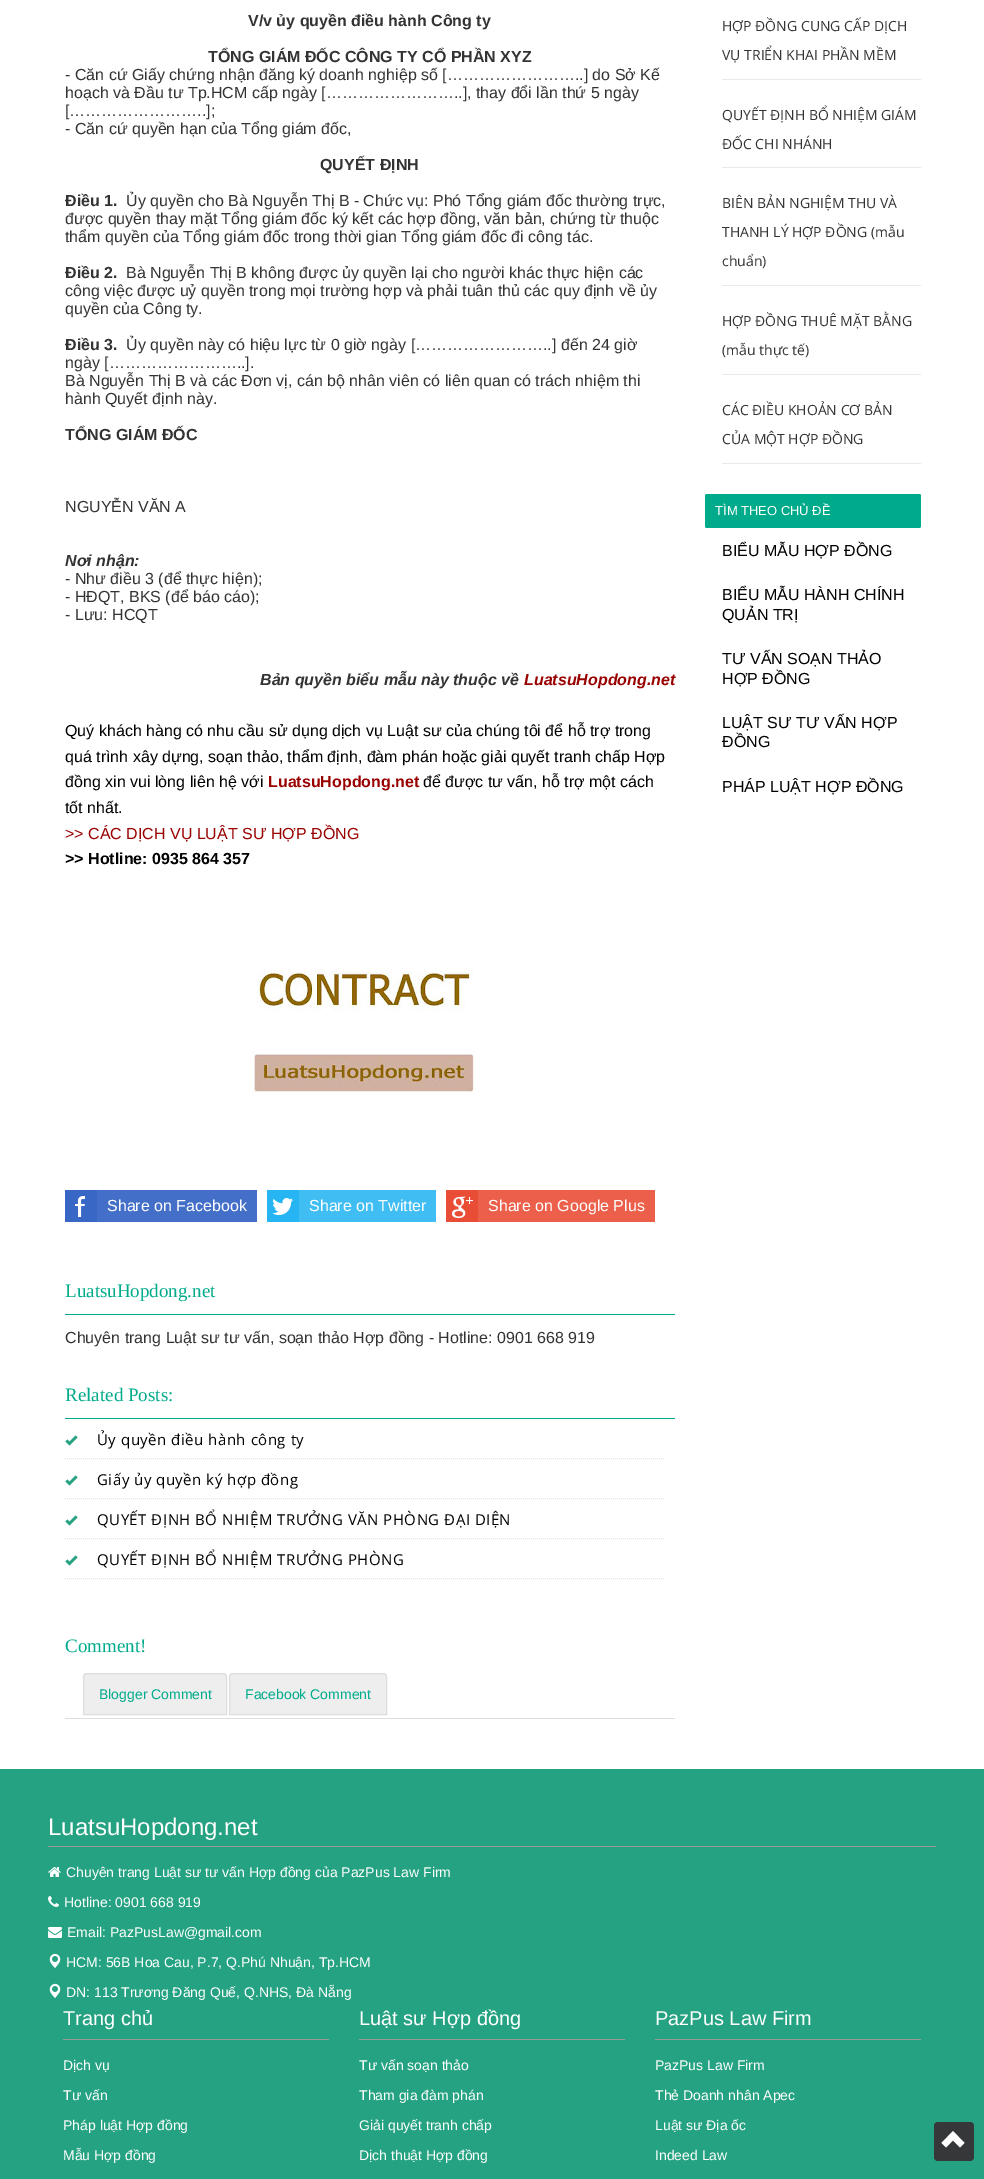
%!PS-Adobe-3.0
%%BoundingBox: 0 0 984 2179
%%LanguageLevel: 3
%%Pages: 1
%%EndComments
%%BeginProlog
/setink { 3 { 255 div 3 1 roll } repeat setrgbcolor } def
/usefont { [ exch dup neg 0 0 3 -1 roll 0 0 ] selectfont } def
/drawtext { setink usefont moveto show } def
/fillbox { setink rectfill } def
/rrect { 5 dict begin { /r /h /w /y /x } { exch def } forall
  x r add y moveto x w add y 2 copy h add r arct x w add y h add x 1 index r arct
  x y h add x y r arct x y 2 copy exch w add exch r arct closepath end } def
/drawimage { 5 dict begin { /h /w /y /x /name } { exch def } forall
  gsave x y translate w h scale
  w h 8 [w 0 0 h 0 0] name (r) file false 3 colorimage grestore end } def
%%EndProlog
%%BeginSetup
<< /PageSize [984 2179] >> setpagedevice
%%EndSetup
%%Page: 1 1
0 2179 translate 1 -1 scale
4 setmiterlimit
0 0 984 2179 255 255 255 fillbox
(V/v ủy quyền điều hành Công ty) 248 26 /LiberationSans-Bold 16 51 51 51 drawtext
(TỔNG GIÁM ĐỐC CÔNG TY CỔ PHẦN XYZ) 208 62 /LiberationSans-Bold 16 51 51 51 drawtext
(- Căn cứ Giấy chứng nhận đăng ký doanh nghiệp số [……………………..] do Sở Kế) 65 80 /LiberationSans-Regular 16 51 51 51 drawtext
(hoạch và Đầu tư Tp.HCM cấp ngày [……………………..], thay đổi lần thứ 5 ngày) 65 98 /LiberationSans-Regular 16 51 51 51 drawtext
([……………………..];) 65 116 /LiberationSans-Regular 16 51 51 51 drawtext
(- Căn cứ quyền hạn của Tổng giám đốc,) 65 134 /LiberationSans-Regular 16 51 51 51 drawtext
(QUYẾT ĐỊNH) 320 170 /LiberationSans-Bold 16 51 51 51 drawtext
(Điều 1.) 65 206 /LiberationSans-Bold 16 51 51 51 drawtext
(Ủy quyền cho Bà Nguyễn Thị B - Chức vụ: Phó Tổng giám đốc thường trực,) 126 206 /LiberationSans-Regular 16 51 51 51 drawtext
(được quyền thay mặt Tổng giám đốc ký kết các hợp đồng, văn bản, chứng từ thuộc) 65 224 /LiberationSans-Regular 16 51 51 51 drawtext
(thẩm quyền của Tổng giám đốc trong thời gian Tổng giám đốc đi công tác.) 65 242 /LiberationSans-Regular 16 51 51 51 drawtext
(Điều 2.) 65 278 /LiberationSans-Bold 16 51 51 51 drawtext
(Bà Nguyễn Thị B không được ủy quyền lại cho người khác thực hiện các) 126 278 /LiberationSans-Regular 16 51 51 51 drawtext
(công việc được uỷ quyền trong mọi trường hợp và phải tuân thủ các quy định về ủy) 65 296 /LiberationSans-Regular 16 51 51 51 drawtext
(quyền của Công ty.) 65 314 /LiberationSans-Regular 16 51 51 51 drawtext
(Điều 3.) 65 350 /LiberationSans-Bold 16 51 51 51 drawtext
(Ủy quyền này có hiệu lực từ 0 giờ ngày [……………………..] đến 24 giờ) 126 350 /LiberationSans-Regular 16 51 51 51 drawtext
(ngày [……………………..].) 65 368 /LiberationSans-Regular 16 51 51 51 drawtext
(Bà Nguyễn Thị B và các Đơn vị, cán bộ nhân viên có liên quan có trách nhiệm thi) 65 386 /LiberationSans-Regular 16 51 51 51 drawtext
(hành Quyết định này.) 65 404 /LiberationSans-Regular 16 51 51 51 drawtext
(TỔNG GIÁM ĐỐC) 65 440 /LiberationSans-Bold 16 51 51 51 drawtext
(NGUYỄN VĂN A) 65 512 /LiberationSans-Regular 16 51 51 51 drawtext
(Nơi nhận:) 65 566 /LiberationSans-BoldItalic 16 51 51 51 drawtext
(- Như điều 3 \(để thực hiện\);) 65 584 /LiberationSans-Regular 16 51 51 51 drawtext
(- HĐQT, BKS \(để báo cáo\);) 65 602 /LiberationSans-Regular 16 51 51 51 drawtext
(- Lưu: HCQT) 65 620 /LiberationSans-Regular 16 51 51 51 drawtext
(Bản quyền biểu mẫu này thuộc về) 260 685 /LiberationSans-BoldItalic 16 51 51 51 drawtext
(LuatsuHopdong.net) 524 685 /LiberationSans-BoldItalic 16 153 0 0 drawtext
(Quý khách hàng có nhu cầu sử dụng dịch vụ Luật sư của chúng tôi để hỗ trợ trong) 65 736 /LiberationSans-Regular 16 0 0 0 drawtext
(quá trình xây dựng, soạn thảo, thẩm định, đàm phán hoặc giải quyết tranh chấp Hợp) 65 762 /LiberationSans-Regular 16 0 0 0 drawtext
(đồng xin vui lòng liên hệ với) 65 787 /LiberationSans-Regular 16 0 0 0 drawtext
(LuatsuHopdong.net) 268 787 /LiberationSans-Bold 16 153 0 0 drawtext
(để được tư vấn, hỗ trợ một cách) 423 787 /LiberationSans-Regular 16 0 0 0 drawtext
(tốt nhất.) 65 813 /LiberationSans-Regular 16 0 0 0 drawtext
(>> CÁC DỊCH VỤ LUẬT SƯ HỢP ĐỒNG) 65 839 /LiberationSans-Regular 16 153 0 0 drawtext
(>> Hotline: 0935 864 357) 65 864 /LiberationSans-Bold 16 0 0 0 drawtext
(assets/img1.rgb) 250 971 224 128 drawimage
97 1190 160 32 67 111 201 fillbox
65 1190 32 32 57 103 198 fillbox
(assets/img2.rgb) 75 1196 10 21 drawimage
(Share on Facebook) 107 1211 /LiberationSans-Regular 16 255 255 255 drawtext
299 1190 137 32 64 190 244 fillbox
267 1190 32 32 38 181 242 fillbox
(assets/img3.rgb) 272 1198 21 17 drawimage
(Share on Twitter) 309 1211 /LiberationSans-Regular 16 255 255 255 drawtext
478 1190 177 32 236 95 74 fillbox
446 1190 32 32 233 77 54 fillbox
(assets/img4.rgb) 451 1196 22 23 drawimage
(Share on Google Plus) 488 1211 /LiberationSans-Regular 16 255 255 255 drawtext
65 1314 610 1 0 171 139 fillbox
(LuatsuHopdong.net) 65 1297 /LiberationSerif-Regular 19 0 171 139 drawtext
(Chuyên trang Luật sư tư vấn, soạn thảo Hợp đồng - Hotline: 0901 668 919) 65 1343 /LiberationSans-Regular 16 51 51 51 drawtext
65 1418 610 1 0 171 139 fillbox
(Related Posts:) 65 1401 /LiberationSerif-Regular 19 0 171 139 drawtext
229 229 229 setink
[1 1] 0 setdash
65 1458.5 moveto 665 1458.5 lineto stroke
(assets/img5.rgb) 65 1435 13 11 drawimage
/OpenSans-Regular 15 usefont
0 0 0 setink
97 1445 moveto 0.5 0 (Ủy quyền điều hành công ty) ashow
229 229 229 setink
65 1498.5 moveto 665 1498.5 lineto stroke
(assets/img5.rgb) 65 1475 13 11 drawimage
0 0 0 setink
97 1485 moveto 0.5 0 (Giấy ủy quyền ký hợp đồng) ashow
229 229 229 setink
65 1538.5 moveto 665 1538.5 lineto stroke
(assets/img5.rgb) 65 1515 13 11 drawimage
0 0 0 setink
97 1525 moveto 0.5 0 (QUYẾT ĐỊNH BỔ NHIỆM TRƯỞNG VĂN PHÒNG ĐẠI DIỆN) ashow
229 229 229 setink
65 1578.5 moveto 665 1578.5 lineto stroke
(assets/img5.rgb) 65 1555 13 11 drawimage
0 0 0 setink
97 1565 moveto 0.5 0 (QUYẾT ĐỊNH BỔ NHIỆM TRƯỞNG PHÒNG) ashow
(Comment!) 65 1652 /LiberationSerif-Regular 19 0 171 139 drawtext
65 1718 610 1 221 221 221 fillbox
238 238 238 setink
87 1673.5 moveto 223 1673.5 lineto 225 1673.5 226.5 1675 226.5 1677 curveto 226.5 1714.5 lineto 83.5 1714.5 lineto 83.5 1677 lineto 83.5 1675 85 1673.5 87 1673.5 curveto closepath gsave fill grestore
221 221 221 setink
[] 0 setdash
stroke
(Blogger Comment) 99 1699 /LiberationSans-Regular 14 0 171 139 drawtext
238 238 238 setink
233 1673.5 moveto 383 1673.5 lineto 385 1673.5 386.5 1675 386.5 1677 curveto 386.5 1714.5 lineto 229.5 1714.5 lineto 229.5 1677 lineto 229.5 1675 231 1673.5 233 1673.5 curveto closepath gsave fill grestore
221 221 221 setink
stroke
(Facebook Comment) 245 1699 /LiberationSans-Regular 14 0 171 139 drawtext
722 79 199 1 233 233 233 fillbox
(HỢP ĐỒNG CUNG CẤP DỊCH) 722 31 /OpenSans-Regular 14 51 51 51 drawtext
(VỤ TRIỂN KHAI PHẦN MỀM) 722 60 /OpenSans-Regular 14 51 51 51 drawtext
722 167 199 1 233 233 233 fillbox
(QUYẾT ĐỊNH BỔ NHIỆM GIÁM) 722 120 /OpenSans-Regular 14 51 51 51 drawtext
(ĐỐC CHI NHÁNH) 722 149 /OpenSans-Regular 14 51 51 51 drawtext
722 285 199 1 233 233 233 fillbox
(BIÊN BẢN NGHIỆM THU VÀ) 722 208 /OpenSans-Regular 14 51 51 51 drawtext
(THANH LÝ HỢP ĐỒNG \(mẫu) 722 237 /OpenSans-Regular 14 51 51 51 drawtext
(chuẩn\)) 722 266 /OpenSans-Regular 14 51 51 51 drawtext
722 374 199 1 233 233 233 fillbox
(HỢP ĐỒNG THUÊ MẶT BẰNG) 722 326 /OpenSans-Regular 14 51 51 51 drawtext
(\(mẫu thực tế\)) 722 355 /OpenSans-Regular 14 51 51 51 drawtext
722 463 199 1 233 233 233 fillbox
(CÁC ĐIỀU KHOẢN CƠ BẢN) 722 415 /OpenSans-Regular 14 51 51 51 drawtext
(CỦA MỘT HỢP ĐỒNG) 722 444 /OpenSans-Regular 14 51 51 51 drawtext
0 171 139 setink
705 494 216 34 2 rrect fill
(TÌM THEO CHỦ ĐỀ) 715 515 /LiberationSans-Regular 13 255 255 255 drawtext
(BIỂU MẪU HỢP ĐỒNG) 722 556 /LiberationSans-Regular 16 0 0 0 drawtext
(BIỂU MẪU HÀNH CHÍNH) 722 600 /LiberationSans-Regular 16 0 0 0 drawtext
(QUẢN TRỊ) 722 620 /LiberationSans-Regular 16 0 0 0 drawtext
(TƯ VẤN SOẠN THẢO) 722 664 /LiberationSans-Regular 16 0 0 0 drawtext
(HỢP ĐỒNG) 722 684 /LiberationSans-Regular 16 0 0 0 drawtext
(LUẬT SƯ TƯ VẤN HỢP) 722 728 /LiberationSans-Regular 16 0 0 0 drawtext
(ĐỒNG) 722 747 /LiberationSans-Regular 16 0 0 0 drawtext
(PHÁP LUẬT HỢP ĐỒNG) 722 792 /LiberationSans-Regular 16 0 0 0 drawtext
0 1769 984 410 36 162 130 fillbox
48 1846 888 1 153 153 153 fillbox
(LuatsuHopdong.net) 48 1835 /LiberationSans-Regular 24 255 255 255 drawtext
(assets/img6.rgb) 48 1867 13 10 drawimage
(Chuyên trang Luật sư tư vấn Hợp đồng của PazPus Law Firm) 66 1877 /LiberationSans-Regular 14 255 255 255 drawtext
(assets/img7.rgb) 48 1896 11 11 drawimage
(Hotline: 0901 668 919) 64 1907 /LiberationSans-Regular 14 255 255 255 drawtext
(assets/img8.rgb) 48 1927 14 11 drawimage
(Email: PazPusLaw@gmail.com) 67 1937 /LiberationSans-Regular 14 255 255 255 drawtext
(assets/img9.rgb) 49 1953 12 15 drawimage
(HCM: 56B Hoa Cau, P.7, Q.Phú Nhuận, Tp.HCM) 66 1967 /LiberationSans-Regular 14 255 255 255 drawtext
(assets/img9.rgb) 49 1983 12 15 drawimage
(DN: 113 Trương Đăng Quế, Q.NHS, Đà Nẵng) 66 1997 /LiberationSans-Regular 14 255 255 255 drawtext
63 2039 266 1 153 153 153 fillbox
(Trang chủ) 63 2025 /LiberationSans-Regular 20 255 255 255 drawtext
(Dịch vụ) 63 2070 /LiberationSans-Regular 14 255 255 255 drawtext
(Tư vấn) 63 2100 /LiberationSans-Regular 14 255 255 255 drawtext
(Pháp luật Hợp đồng) 63 2130 /LiberationSans-Regular 14 255 255 255 drawtext
(Mẫu Hợp đồng) 63 2160 /LiberationSans-Regular 14 255 255 255 drawtext
359 2039 266 1 153 153 153 fillbox
(Luật sư Hợp đồng) 359 2025 /LiberationSans-Regular 20 255 255 255 drawtext
(Tư vấn soạn thảo) 359 2070 /LiberationSans-Regular 14 255 255 255 drawtext
(Tham gia đàm phán) 359 2100 /LiberationSans-Regular 14 255 255 255 drawtext
(Giải quyết tranh chấp) 359 2130 /LiberationSans-Regular 14 255 255 255 drawtext
(Dịch thuật Hợp đồng) 359 2160 /LiberationSans-Regular 14 255 255 255 drawtext
655 2039 266 1 153 153 153 fillbox
(PazPus Law Firm) 655 2025 /LiberationSans-Regular 20 255 255 255 drawtext
(PazPus Law Firm) 655 2070 /LiberationSans-Regular 14 255 255 255 drawtext
(Thẻ Doanh nhân Apec) 655 2100 /LiberationSans-Regular 14 255 255 255 drawtext
(Luật sư Địa ốc) 655 2130 /LiberationSans-Regular 14 255 255 255 drawtext
(Indeed Law) 655 2160 /LiberationSans-Regular 14 255 255 255 drawtext
53 55 56 setink
934 2122 40 39 4 rrect fill
255 255 255 setink
941.5 2143 moveto 946 2147.5 lineto 953 2140.5 lineto 960 2147.5 lineto 964.5 2143 lineto 953 2131 lineto closepath fill
showpage
%%EOF
